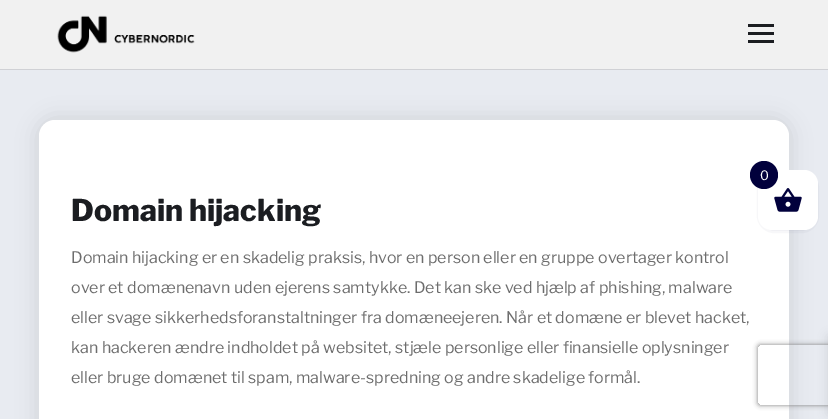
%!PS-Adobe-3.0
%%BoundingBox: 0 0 828 419
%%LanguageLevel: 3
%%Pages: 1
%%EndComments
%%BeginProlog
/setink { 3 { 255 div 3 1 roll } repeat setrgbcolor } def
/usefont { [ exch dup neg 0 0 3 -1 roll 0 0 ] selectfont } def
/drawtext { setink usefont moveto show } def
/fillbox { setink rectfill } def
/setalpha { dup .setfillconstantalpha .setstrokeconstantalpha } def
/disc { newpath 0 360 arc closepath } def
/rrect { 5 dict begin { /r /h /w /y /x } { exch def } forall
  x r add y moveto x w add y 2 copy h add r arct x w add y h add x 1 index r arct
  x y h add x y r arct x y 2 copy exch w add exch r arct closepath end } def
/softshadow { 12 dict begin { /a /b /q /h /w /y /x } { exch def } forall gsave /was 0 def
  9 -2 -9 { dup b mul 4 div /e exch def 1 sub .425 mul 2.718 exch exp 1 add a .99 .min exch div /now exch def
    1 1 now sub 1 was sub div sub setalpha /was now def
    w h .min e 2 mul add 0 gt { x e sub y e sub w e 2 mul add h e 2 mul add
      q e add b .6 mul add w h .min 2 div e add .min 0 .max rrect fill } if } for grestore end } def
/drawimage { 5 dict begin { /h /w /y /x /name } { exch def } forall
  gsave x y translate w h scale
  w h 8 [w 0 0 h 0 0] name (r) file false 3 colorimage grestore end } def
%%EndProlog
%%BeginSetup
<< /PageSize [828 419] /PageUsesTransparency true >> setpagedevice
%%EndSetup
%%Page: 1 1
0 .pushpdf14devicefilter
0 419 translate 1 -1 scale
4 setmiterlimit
0 0 828 419 232 235 241 fillbox
0 0 0 setink
37 118 754 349 18 10 0.1 softshadow
255 255 255 setink
39 120 750 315 16 rrect fill
1 0 60 setink
768 182 40 40 4 5 1 softshadow
255 255 255 setink
758 170 60 60 14 rrect fill
(assets/img1.rgb) 774 188 28 24 drawimage
1 0 60 setink
764 175 14 disc fill
(0) 760 180 /LibreFranklin-Regular 13 255 255 255 drawtext
0 0 0 setink
828 336 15 78 0 5 0.1 softshadow
0 0 828 69 241 241 241 fillbox
0 69 828 1 208 209 213 fillbox
(assets/img2.rgb) 57 15 138 38 drawimage
748 32 26 3 27 29 33 fillbox
748 24 26 3 27 29 33 fillbox
748 40 26 3 27 29 33 fillbox
(Domain hijacking) 71 221 /LibreFranklin-ExtraBold 30 27 29 33 drawtext
(Domain hijacking er en skadelig praksis, hvor en person eller en gruppe overtager kontrol) 71 263 /LibreFranklin-Regular 16 109 109 109 drawtext
(over et domænenavn uden ejerens samtykke. Det kan ske ved hjælp af phishing, malware) 71 293 /LibreFranklin-Regular 16 109 109 109 drawtext
(eller svage sikkerhedsforanstaltninger fra domæneejeren. Når et domæne er blevet hacket,) 71 323 /LibreFranklin-Regular 16 109 109 109 drawtext
(kan hackeren ændre indholdet på websitet, stjæle personlige eller finansielle oplysninger) 71 353 /LibreFranklin-Regular 16 109 109 109 drawtext
(eller bruge domænet til spam, malware-spredning og andre skadelige formål.) 71 383 /LibreFranklin-Regular 16 109 109 109 drawtext
gsave
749 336 moveto 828 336 lineto 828 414 lineto 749 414 lineto closepath 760 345 moveto 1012 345 lineto 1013 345 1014 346 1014 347 curveto 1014 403 lineto 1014 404 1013 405 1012 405 curveto 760 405 lineto 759 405 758 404 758 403 curveto 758 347 lineto 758 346 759 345 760 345 curveto closepath eoclip newpath
128 128 128 setink
758 345 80 60 2 2.5 1 softshadow
grestore
.poppdf14devicefilter showpage
%%EOF
